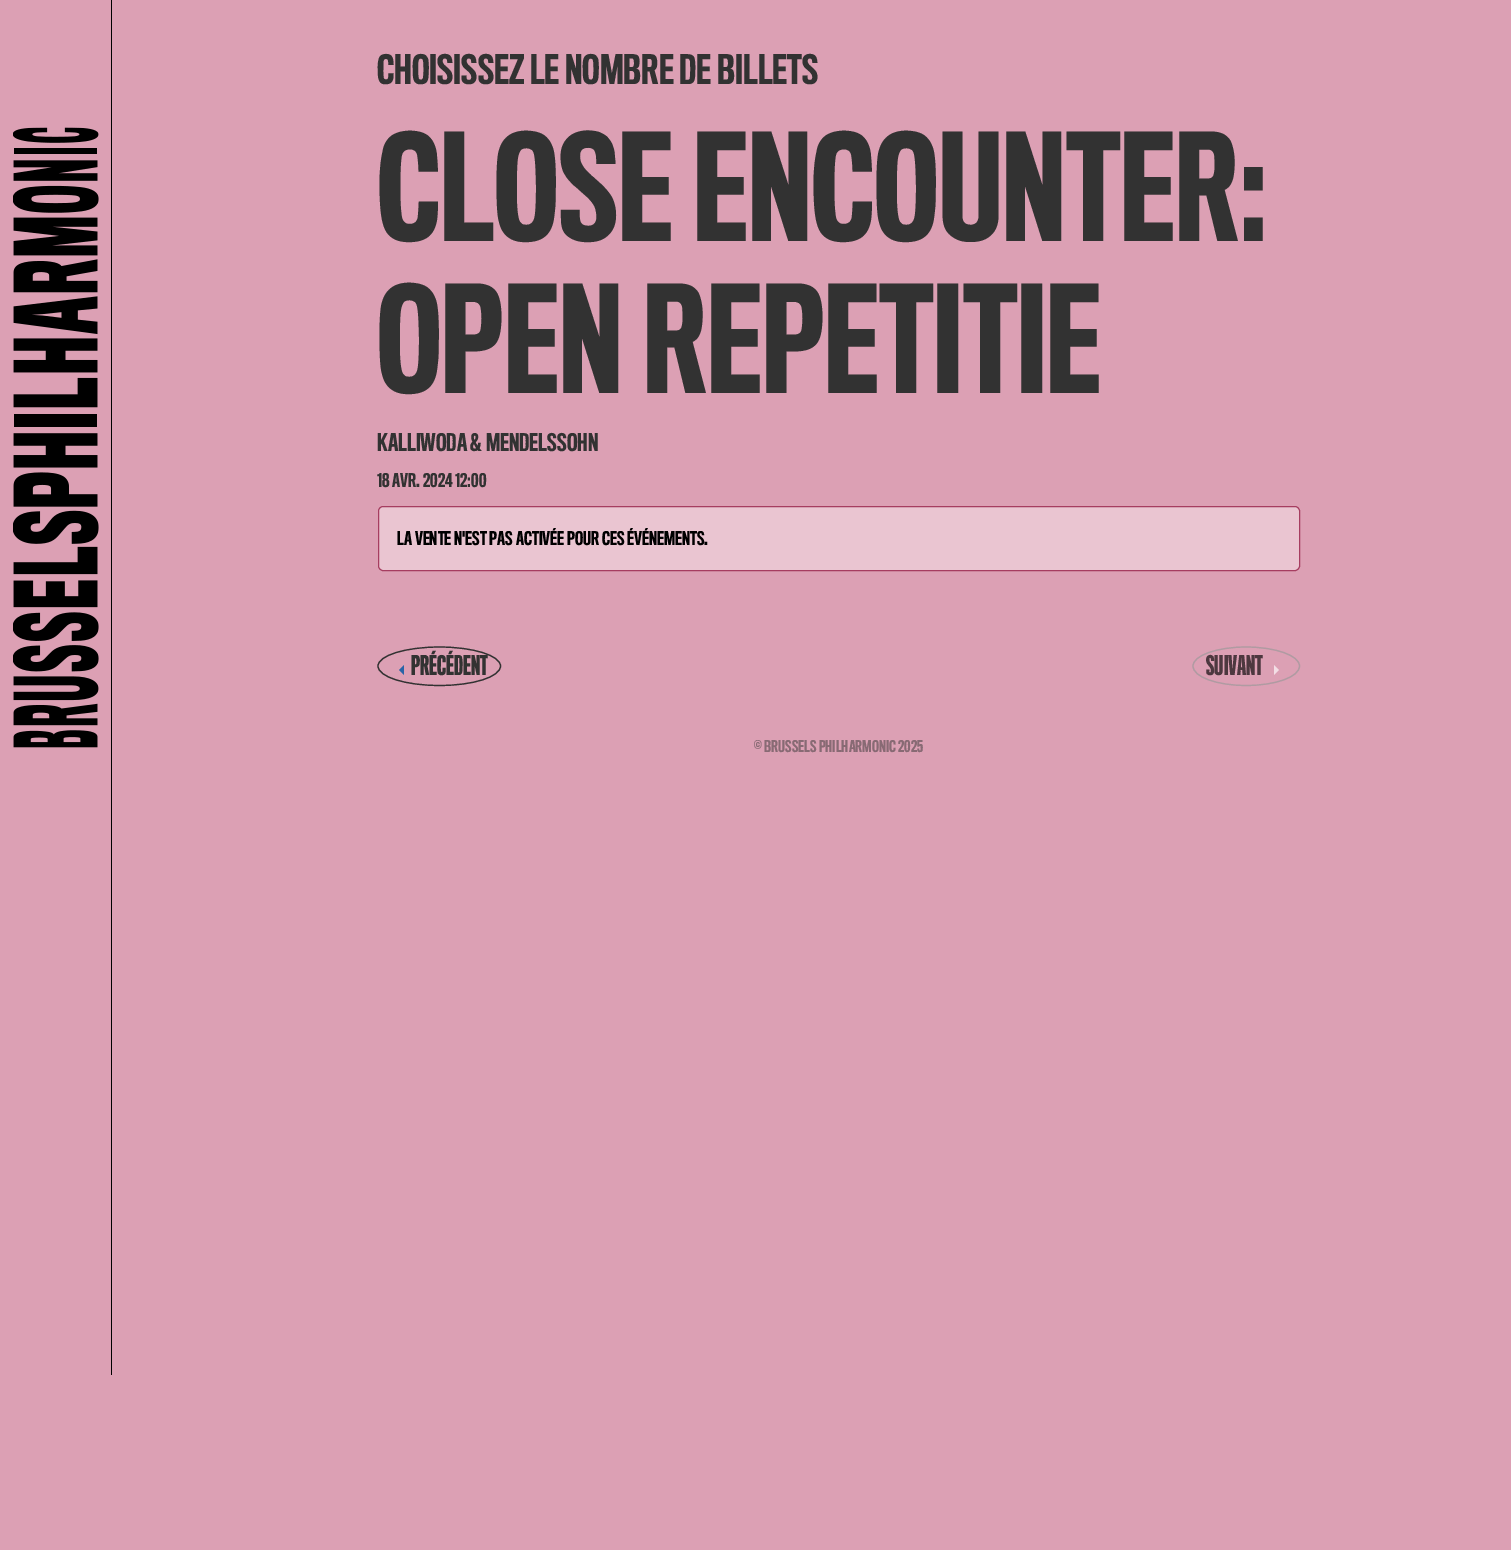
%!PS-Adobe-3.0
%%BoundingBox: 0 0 1511 1550
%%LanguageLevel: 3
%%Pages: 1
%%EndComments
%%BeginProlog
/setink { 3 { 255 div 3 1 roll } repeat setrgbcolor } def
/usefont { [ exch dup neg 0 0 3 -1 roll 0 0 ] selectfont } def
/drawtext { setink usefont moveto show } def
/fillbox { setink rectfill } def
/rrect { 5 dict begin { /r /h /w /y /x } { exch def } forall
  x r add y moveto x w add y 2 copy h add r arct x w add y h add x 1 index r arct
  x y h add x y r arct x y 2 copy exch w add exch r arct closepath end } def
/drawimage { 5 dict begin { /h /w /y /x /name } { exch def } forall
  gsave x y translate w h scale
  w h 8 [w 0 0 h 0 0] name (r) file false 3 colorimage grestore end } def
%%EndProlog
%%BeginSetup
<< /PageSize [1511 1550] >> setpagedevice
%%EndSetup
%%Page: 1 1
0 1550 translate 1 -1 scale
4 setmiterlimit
0 0 1511 1550 220 160 180 fillbox
111 0 1 1375 0 0 0 fillbox
(assets/img1.rgb) 13 127 86 621 drawimage
(CHOISISSEZ LE NOMBRE DE BILLETS) 377 84 /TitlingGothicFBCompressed-Medium 37.5 50 50 50 drawtext
(CLOSE ENCOUNTER:) 377 241 /TitlingGothicFBCompressed-Medium 137.5 50 50 50 drawtext
(OPEN REPETITIE) 377 393 /TitlingGothicFBCompressed-Medium 137.5 50 50 50 drawtext
(KALLIWODA & MENDELSSOHN) 377 451 /TitlingGothicFBCompressed-Medium 22.5 50 50 50 drawtext
(18 AVR. 2024 12:00) 377 487 /TitlingGothicFBCompressed-Medium 17.5 50 50 50 drawtext
234 197 209 setink
378.5 506.5 921 64 4.5 rrect gsave fill grestore
166 61 96 setink
stroke
(LA VENTE N'EST PAS ACTIVÉE POUR CES ÉVÉNEMENTS.) 397 545 /TitlingGothicFBCompressed-Medium 17.5 0 0 0 drawtext
50 50 50 setink
1.2 setlinewidth
439.5 647 moveto 473 647 500.5 655.5 500.5 666 curveto 500.5 677 473 685.5 439.5 685.5 curveto 405.5 685.5 378 677 378 666 curveto 378 655.5 405.5 647 439.5 647 curveto closepath stroke
40 100 167 setink
404 665 moveto 404 675 lineto 399 670 lineto closepath fill
(PRÉCÉDENT) 411 675 /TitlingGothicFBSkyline-Medium 25 50 50 50 drawtext
176 155 162 setink
1246 647 moveto 1275.5 647 1299.5 655.5 1299.5 666 curveto 1299.5 677 1275.5 685.5 1246 685.5 curveto 1217 685.5 1193 677 1193 666 curveto 1193 655.5 1217 647 1246 647 curveto closepath stroke
(SUIVANT) 1206 675 /TitlingGothicFBSkyline-Medium 25 77 56 63 drawtext
243 222 229 setink
1274 675 moveto 1274 665 lineto 1279 670 lineto closepath fill
(© BRUSSELS PHILHARMONIC 2025) 754 752 /TitlingGothicFBCompressed-Medium 15 136 106 116 drawtext
showpage
%%EOF
